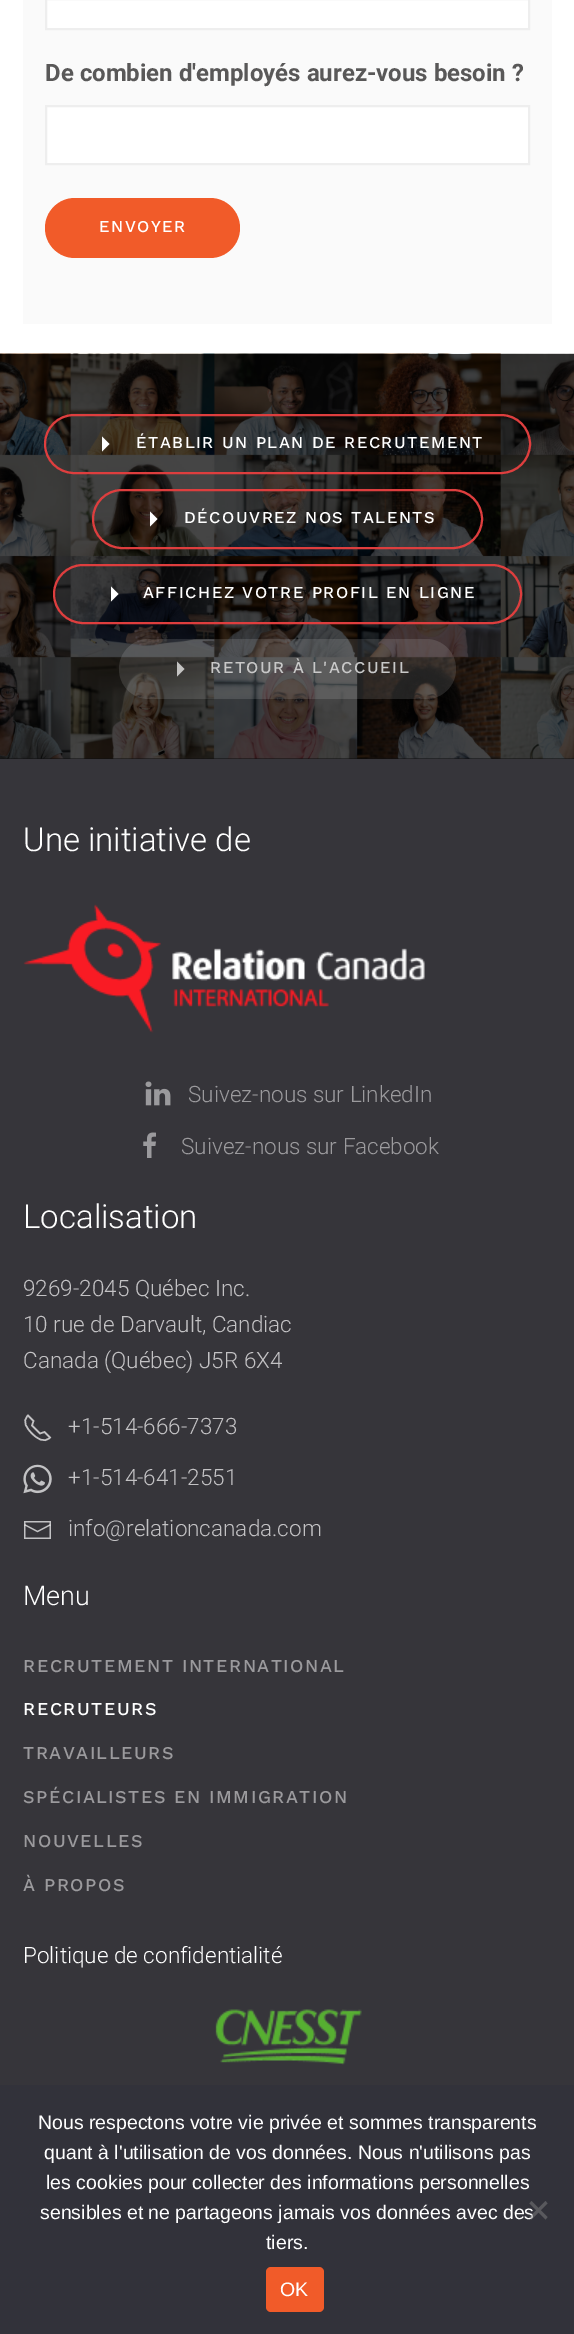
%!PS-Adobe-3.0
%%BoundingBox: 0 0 574 2334
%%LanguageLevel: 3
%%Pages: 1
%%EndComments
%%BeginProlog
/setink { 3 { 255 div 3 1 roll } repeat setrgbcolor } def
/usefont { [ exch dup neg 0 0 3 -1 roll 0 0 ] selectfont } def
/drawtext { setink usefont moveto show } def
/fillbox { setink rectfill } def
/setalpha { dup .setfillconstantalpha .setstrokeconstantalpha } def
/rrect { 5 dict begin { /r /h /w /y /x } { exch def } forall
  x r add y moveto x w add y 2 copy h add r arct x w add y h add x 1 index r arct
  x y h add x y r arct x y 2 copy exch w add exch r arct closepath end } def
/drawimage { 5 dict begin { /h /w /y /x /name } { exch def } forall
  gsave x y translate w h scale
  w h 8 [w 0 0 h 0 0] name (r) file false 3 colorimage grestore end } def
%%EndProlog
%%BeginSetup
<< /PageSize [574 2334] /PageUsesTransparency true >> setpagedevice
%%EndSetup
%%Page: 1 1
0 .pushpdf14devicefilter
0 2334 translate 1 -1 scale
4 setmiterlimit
0 0 574 2334 255 255 255 fillbox
23 0 529 324 250 250 250 fillbox
255 255 255 setink
46 -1 moveto 529 -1 lineto 529 29 lineto 46 29 lineto closepath gsave fill grestore
238 238 238 setink
2 setlinewidth
stroke
(De combien d'employés aurez-vous besoin ?) 45 81 /Roboto-Bold 24 89 88 88 drawtext
255 255 255 setink
46 106 moveto 529 106 lineto 529 164 lineto 46 164 lineto closepath gsave fill grestore
238 238 238 setink
stroke
241 91 41 setink
45 198 195 60 30 rrect fill
/WorkSans-Medium 16.5 usefont
255 255 255 setink
99 232 moveto 1.5 0 (ENVOYER) ashow
0 758 574 1 15 14 15 fillbox
(assets/img1.rgb) 0 353 574 406 drawimage
222 62 62 setink
45 415 485 58 29 rrect stroke
255 255 255 setink
102 436.5 moveto 109.5 444 lineto 102 451.5 lineto closepath fill
136 448 moveto 1.5 0 (ÉTABLIR UN PLAN DE RECRUTEMENT) ashow
222 62 62 setink
93 490 389 58 29 rrect stroke
255 255 255 setink
150 511.5 moveto 157.5 519 lineto 150 526.5 lineto closepath fill
184 523 moveto 1.5 0 (DÉCOUVREZ NOS TALENTS) ashow
222 62 62 setink
54 565 467 58 29 rrect stroke
255 255 255 setink
111 586.5 moveto 118.5 594 lineto 111 601.5 lineto closepath fill
143 598 moveto 1.5 0 (AFFICHEZ VOTRE PROFIL EN LIGNE) ashow
0.12 setalpha
119 639 337 60 30 rrect fill
0.7 setalpha
177 661.5 moveto 184.5 669 lineto 177 676.5 lineto closepath fill
1 setalpha
200 200 200 setink
210 673 moveto 1.5 0 (RETOUR À L'ACCUEIL) ashow
0 759 574 1326 54 53 58 fillbox
(Une initiative de) 23 851 /Roboto-Light 33 255 255 255 drawtext
(assets/img2.rgb) 23 904 402 129 drawimage
(assets/img3.rgb) 145 1081 26 25 drawimage
(Suivez-nous sur LinkedIn) 188 1102 /Roboto-Light 22.5 155 154 157 drawtext
(assets/img4.rgb) 143 1132 13 26 drawimage
(Suivez-nous sur Facebook) 181 1154 /Roboto-Light 22.5 155 154 157 drawtext
(Localisation) 23 1228 /Roboto-Light 33 255 255 255 drawtext
(9269-2045 Québec Inc.) 23 1296 /Roboto-Light 22.5 195 194 196 drawtext
(10 rue de Darvault, Candiac) 23 1332 /Roboto-Light 22.5 195 194 196 drawtext
(Canada \(Québec\) J5R 6X4) 23 1368 /Roboto-Light 22.5 195 194 196 drawtext
1.5 setlinewidth
32 1433.5 moveto 36.5 1438 44 1444 50 1437.5 curveto 44.5 1432 lineto 40 1433.5 lineto 32 1425.5 lineto 33.5 1421 lineto 28 1415.5 lineto 21.5 1421.5 27 1428.5 32 1433.5 curveto stroke
(+1-514-666-7373) 68 1434 /Roboto-Light 22.5 195 194 196 drawtext
(assets/img5.rgb) 23 1464 29 30 drawimage
(+1-514-641-2551) 68 1485 /Roboto-Light 22.5 195 194 196 drawtext
(assets/img6.rgb) 24 1521 27 18 drawimage
(info@relationcanada.com) 68 1536 /Roboto-Light 22.5 195 194 196 drawtext
(Menu) 23 1605 /Roboto-Light 27 255 255 255 drawtext
/WorkSans-Medium 18 usefont
155 154 157 setink
23 1672 moveto 1.5 0 (RECRUTEMENT INTERNATIONAL) ashow
255 255 255 setink
23 1715 moveto 1.5 0 (RECRUTEURS) ashow
155 154 157 setink
23 1759 moveto 1.5 0 (TRAVAILLEURS) ashow
23 1803 moveto 1.5 0 (SPÉCIALISTES EN IMMIGRATION) ashow
23 1847 moveto 1.5 0 (NOUVELLES) ashow
23 1891 moveto 1.5 0 (À PROPOS) ashow
(Politique de confidentialité) 23 1963 /Roboto-Light 22.5 255 255 255 drawtext
(assets/img7.rgb) 215 2009 147 56 drawimage
0 2085 574 249 50 50 58 fillbox
(Nous respectons votre vie privée et sommes transparents) 38 2129 /LiberationSans-Regular 19.5 255 255 255 drawtext
(quant à l'utilisation de vos données. Nous n'utilisons pas) 44 2159 /LiberationSans-Regular 19.5 255 255 255 drawtext
(les cookies pour collecter des informations personnelles) 46 2189 /LiberationSans-Regular 19.5 255 255 255 drawtext
(sensibles et ne partageons jamais vos données avec des) 40 2219 /LiberationSans-Regular 19.5 255 255 255 drawtext
(tiers.) 266 2249 /LiberationSans-Regular 19.5 255 255 255 drawtext
0.5 setalpha
128 128 128 setink
545.5 2201 moveto 547.5 2203.5 lineto 531.5 2219.5 lineto 529.5 2217 lineto closepath fill
1 setalpha
89 89 93 setink
529.5 2203.5 moveto 531.5 2201 lineto 547.5 2217 lineto 545.5 2219.5 lineto closepath fill
241 91 41 setink
266 2267 58 45 5 rrect fill
(OK) 280 2296 /LiberationSans-Regular 19.5 255 255 255 drawtext
.poppdf14devicefilter showpage
%%EOF
